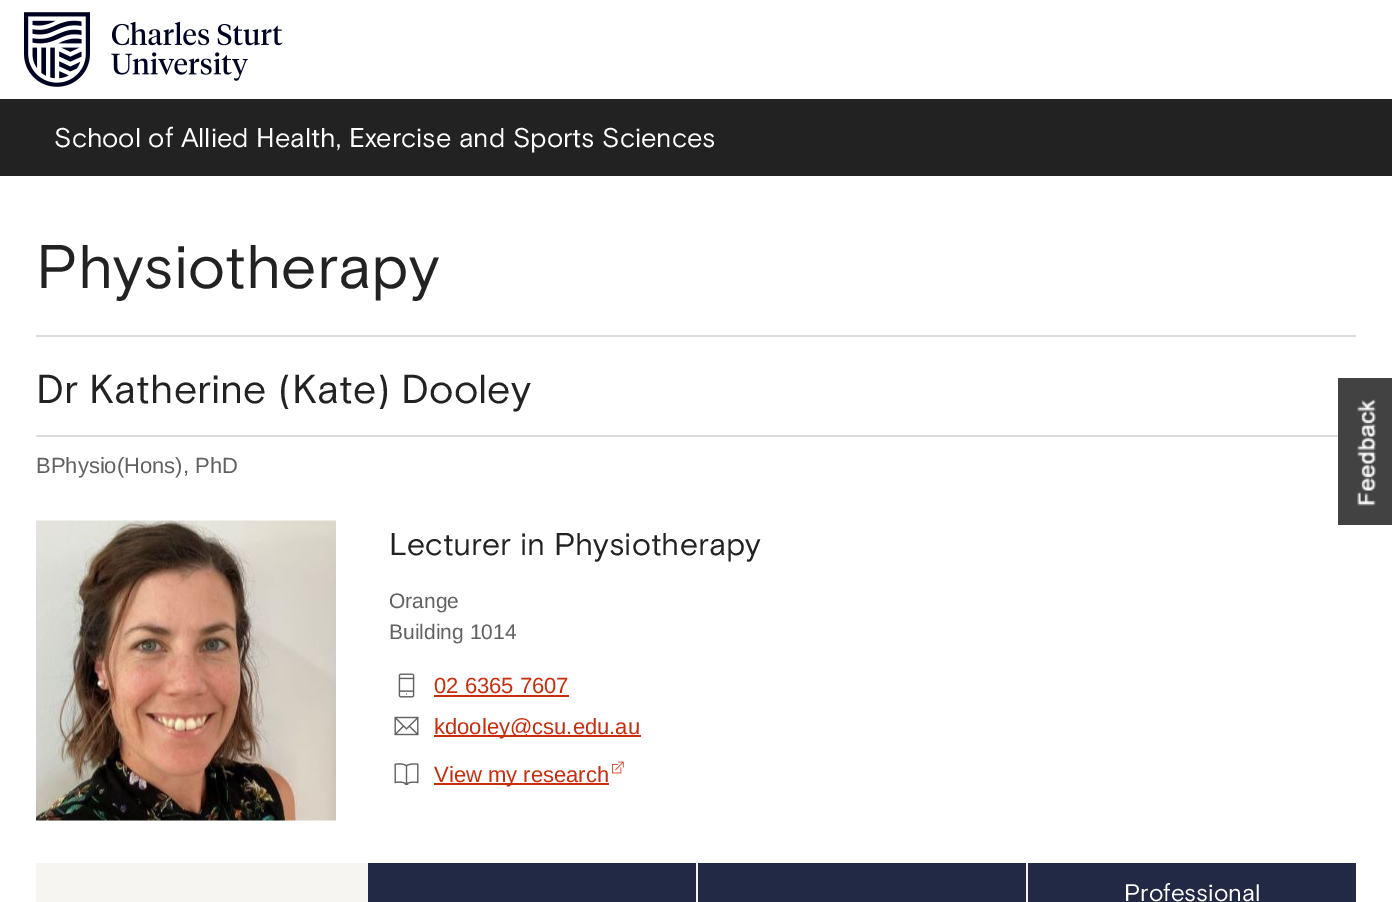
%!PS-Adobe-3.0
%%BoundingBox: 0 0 1392 902
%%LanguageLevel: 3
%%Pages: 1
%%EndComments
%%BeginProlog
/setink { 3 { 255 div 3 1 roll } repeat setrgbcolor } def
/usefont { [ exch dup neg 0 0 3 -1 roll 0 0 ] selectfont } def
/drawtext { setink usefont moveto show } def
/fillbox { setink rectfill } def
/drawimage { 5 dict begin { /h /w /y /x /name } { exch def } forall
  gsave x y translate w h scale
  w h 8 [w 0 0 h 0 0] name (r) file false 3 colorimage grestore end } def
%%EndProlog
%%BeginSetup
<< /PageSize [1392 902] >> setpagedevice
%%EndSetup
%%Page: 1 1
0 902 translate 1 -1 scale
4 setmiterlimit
0 0 1392 902 255 255 255 fillbox
(assets/img1.rgb) 24 12 259 75 drawimage
0 99 1392 77 34 34 34 fillbox
(School of Allied Health, Exercise and Sports Sciences) 54 147 /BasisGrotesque-Regular 27 255 255 255 drawtext
36 335 1320 2 221 221 221 fillbox
(Physiotherapy) 36 288 /BasisGrotesque-Regular 61.5 34 34 34 drawtext
36 435 1302 2 221 221 221 fillbox
(Dr Katherine \(Kate\) Dooley) 36 403 /BasisGrotesque-Regular 40.5 34 34 34 drawtext
(BPhysio\(Hons\), PhD) 36 473 /LiberationSans-Regular 22 97 97 97 drawtext
(assets/img2.rgb) 36 520 300 301 drawimage
(Lecturer in Physiotherapy) 389 555 /BasisGrotesque-Regular 31.5 34 34 34 drawtext
(Orange) 389 608 /LiberationSans-Regular 21 97 97 97 drawtext
(Building 1014) 389 639 /LiberationSans-Regular 21 97 97 97 drawtext
(assets/img3.rgb) 398 673 17 25 drawimage
(02 6365 7607) 434 693 /LiberationSans-Regular 22 201 45 12 drawtext
434 695 135 2 201 45 12 fillbox
(assets/img4.rgb) 394 716 25 20 drawimage
434 735 207 2 201 45 12 fillbox
(kdooley@csu.edu.au) 434 734 /LiberationSans-Regular 22 201 45 12 drawtext
(assets/img5.rgb) 394 763 25 22 drawimage
434 783 175 2 201 45 12 fillbox
(View my research) 434 782 /LiberationSans-Regular 22 201 45 12 drawtext
(assets/img6.rgb) 612 761 12 13 drawimage
36 863 332 39 247 245 242 fillbox
368 863 328 39 34 41 68 fillbox
698 863 328 39 34 41 68 fillbox
696 863 2 39 247 245 242 fillbox
1028 863 328 39 34 41 68 fillbox
1026 863 2 39 247 245 242 fillbox
(Professional) 1124 901 /BasisGrotesque-Regular 24 255 255 255 drawtext
(assets/img7.rgb) 1338 378 54 147 drawimage
showpage
%%EOF
